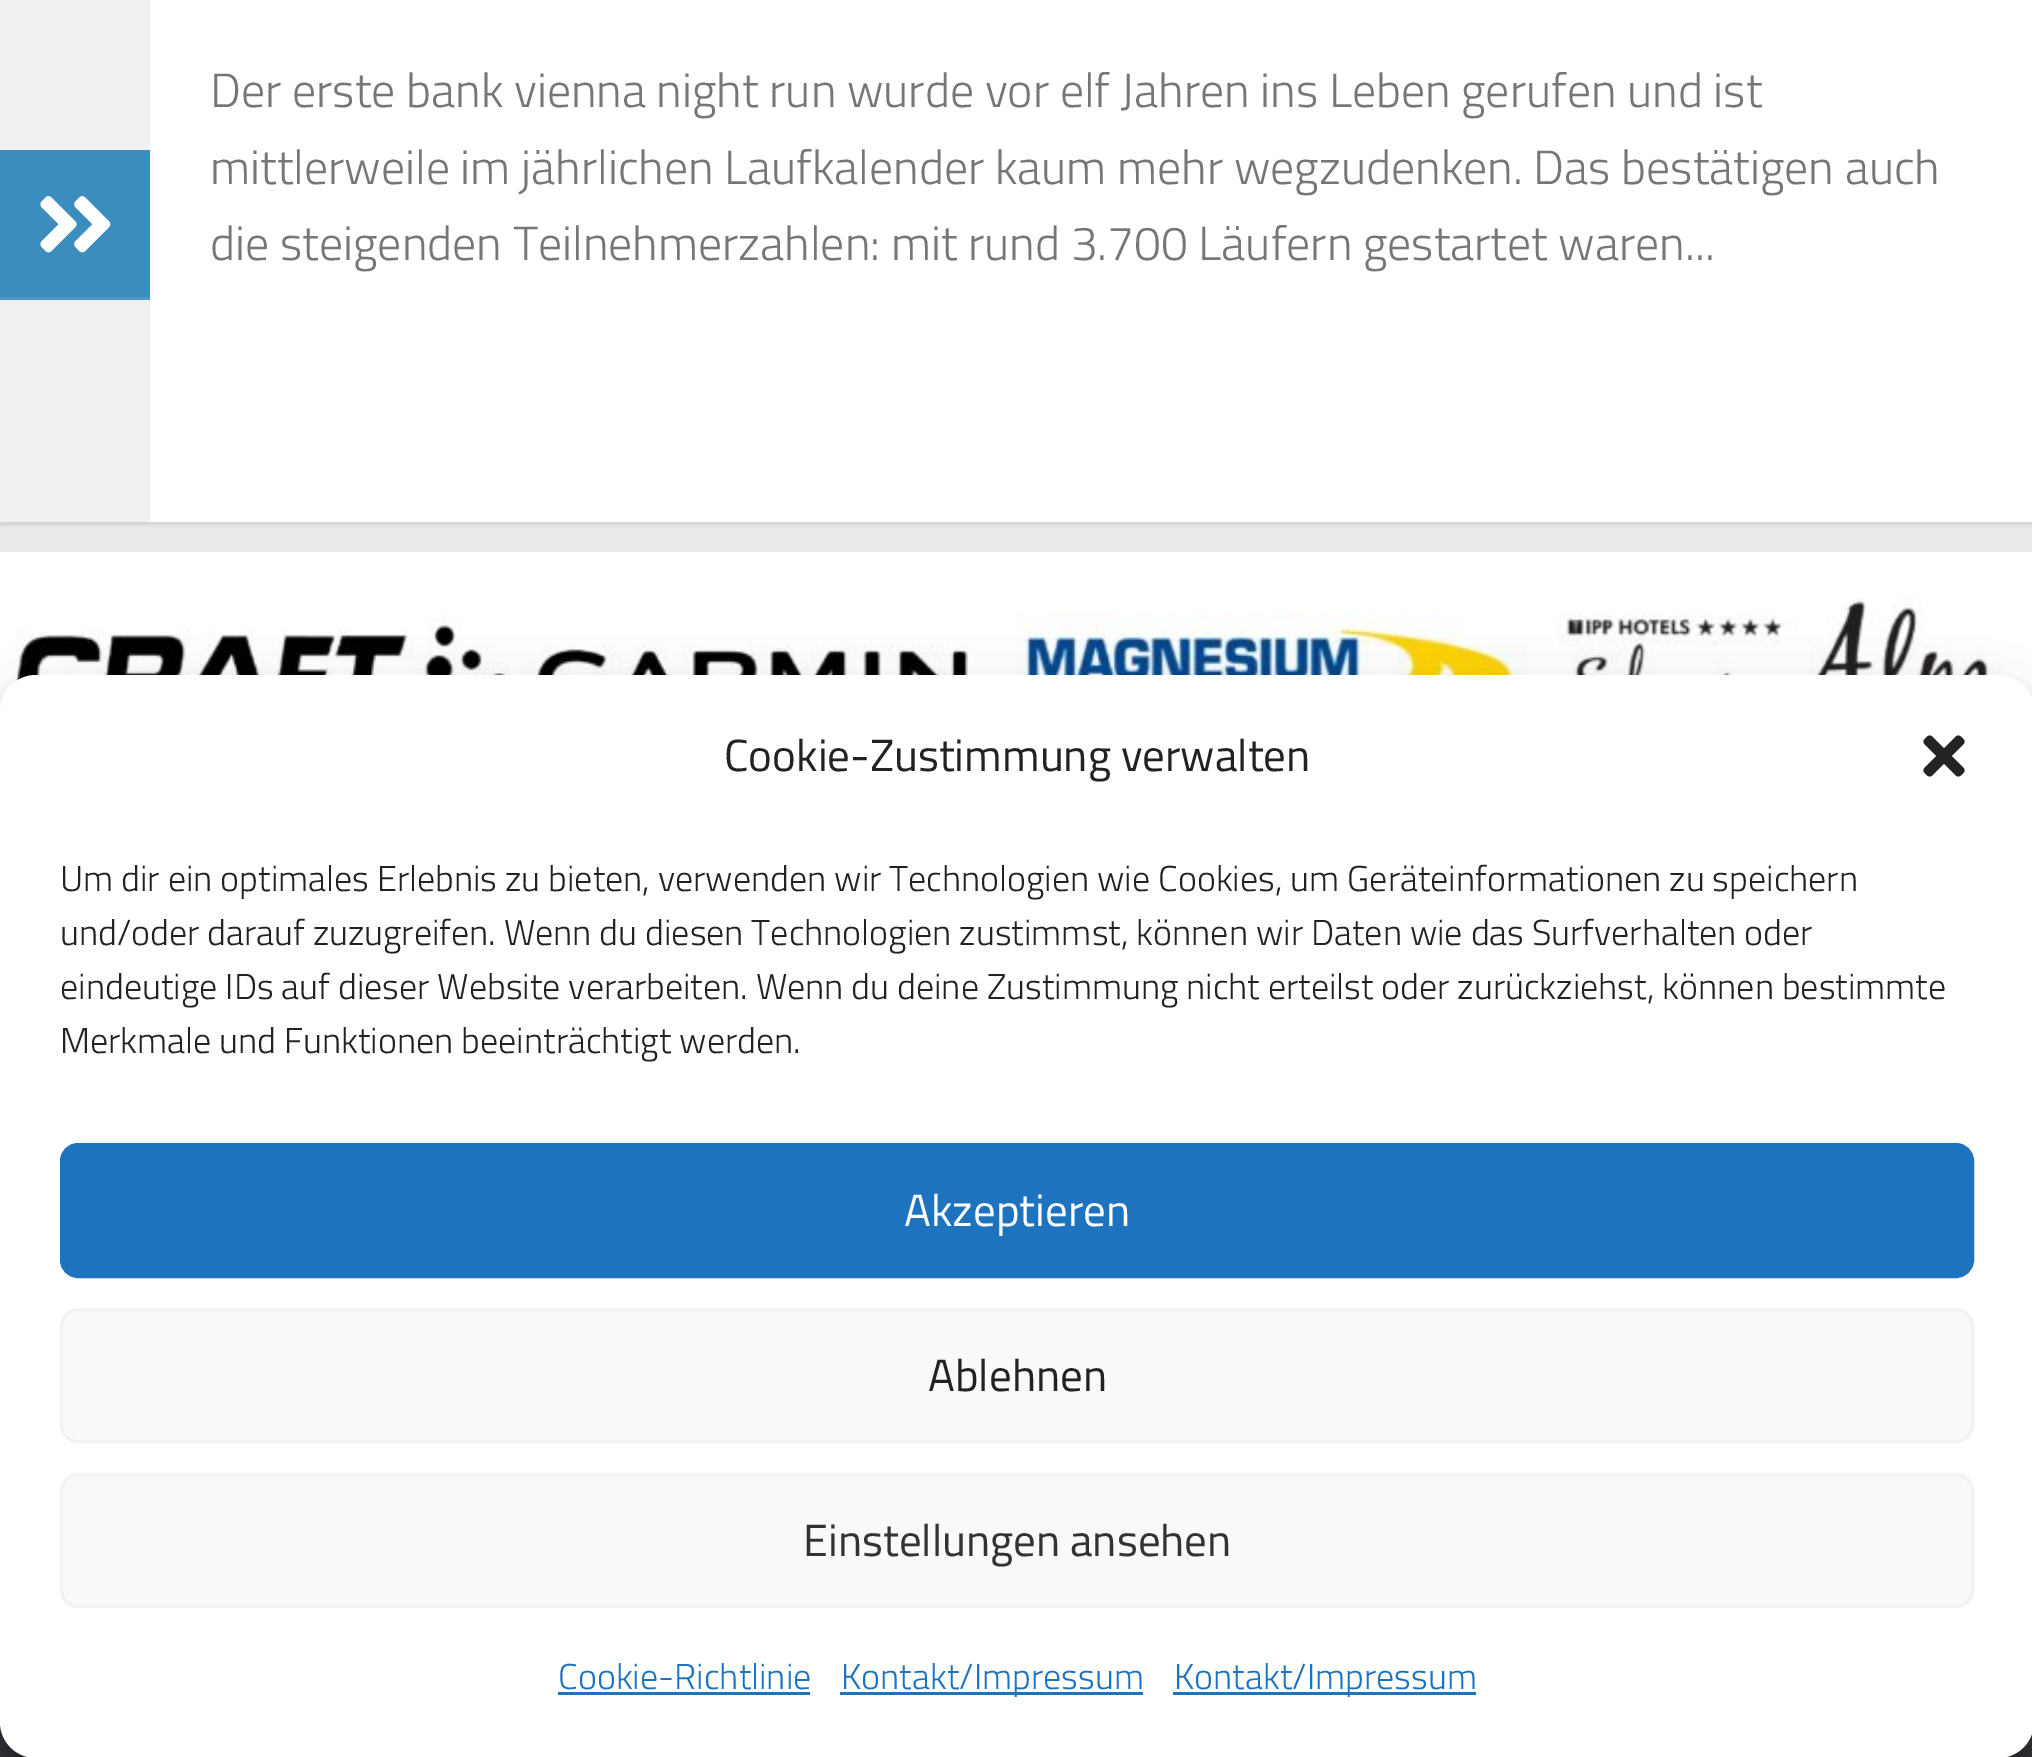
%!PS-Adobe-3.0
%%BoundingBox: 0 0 2032 1757
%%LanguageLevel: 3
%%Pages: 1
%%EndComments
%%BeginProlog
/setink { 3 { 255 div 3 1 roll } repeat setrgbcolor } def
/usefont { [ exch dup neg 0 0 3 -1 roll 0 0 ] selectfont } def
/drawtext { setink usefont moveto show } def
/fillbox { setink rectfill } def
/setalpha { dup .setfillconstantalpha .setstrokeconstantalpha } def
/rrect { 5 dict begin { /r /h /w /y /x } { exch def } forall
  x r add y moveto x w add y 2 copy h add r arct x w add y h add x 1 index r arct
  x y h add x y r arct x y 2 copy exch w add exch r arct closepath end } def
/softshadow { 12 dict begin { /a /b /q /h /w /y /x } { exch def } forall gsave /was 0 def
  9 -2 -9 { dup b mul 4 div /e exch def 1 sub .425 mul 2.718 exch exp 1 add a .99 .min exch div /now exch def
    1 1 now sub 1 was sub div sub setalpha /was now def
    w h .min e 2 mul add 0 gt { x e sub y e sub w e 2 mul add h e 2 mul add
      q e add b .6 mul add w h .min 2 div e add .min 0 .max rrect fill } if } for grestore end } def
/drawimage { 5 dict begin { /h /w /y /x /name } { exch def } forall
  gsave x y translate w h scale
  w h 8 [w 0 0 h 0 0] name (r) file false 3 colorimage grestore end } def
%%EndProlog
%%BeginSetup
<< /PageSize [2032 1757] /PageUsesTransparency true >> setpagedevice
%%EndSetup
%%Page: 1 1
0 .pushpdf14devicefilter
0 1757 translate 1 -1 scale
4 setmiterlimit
0 0 2032 1757 234 234 234 fillbox
0 0 0 setink
0 -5 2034 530 0 1.5 0.1 softshadow
150 0 1882 522 255 255 255 fillbox
0 0 150 522 240 240 240 fillbox
0 150 150 147 59 141 189 fillbox
0 297 150 3 79 152 196 fillbox
(assets/img1.rgb) 40 196 71 57 drawimage
(Der erste bank vienna night run wurde vor elf Jahren ins Leben gerufen und ist) 210 107 /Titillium-Light 48 118 118 118 drawtext
(mittlerweile im jährlichen Laufkalender kaum mehr wegzudenken. Das bestätigen auch) 210 184 /Titillium-Light 48 118 118 118 drawtext
(die steigenden Teilnehmerzahlen: mit rund 3.700 Läufern gestartet waren...) 210 260 /Titillium-Light 48 118 118 118 drawtext
0 552 2032 46 255 255 255 fillbox
(assets/img2.rgb) 0 598 2032 113 drawimage
0 1722 2032 35 51 54 59 fillbox
0 0 0 setink
0 693 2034 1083 36 9 0.23 softshadow
0 705 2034 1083 36 30 0.19 softshadow
255 255 255 setink
0 675 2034 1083 36 rrect fill
(Cookie-Zustimmung verwalten) 724 771 /Titillium-Regular 45 34 34 34 drawtext
(assets/img3.rgb) 1923 735 42 42 drawimage
(Um dir ein optimales Erlebnis zu bieten, verwenden wir Technologien wie Cookies, um Geräteinformationen zu speichern) 60 891 /Titillium-Light 36 34 34 34 drawtext
(und/oder darauf zuzugreifen. Wenn du diesen Technologien zustimmst, können wir Daten wie das Surfverhalten oder) 60 945 /Titillium-Light 36 34 34 34 drawtext
(eindeutige IDs auf dieser Website verarbeiten. Wenn du deine Zustimmung nicht erteilst oder zurückziehst, können bestimmte) 60 999 /Titillium-Light 36 34 34 34 drawtext
(Merkmale und Funktionen beeinträchtigt werden.) 60 1053 /Titillium-Light 36 34 34 34 drawtext
30 115 190 setink
61.5 1144.5 1911 132 16.5 rrect gsave fill grestore
3 setlinewidth
stroke
(Akzeptieren) 904 1226 /Titillium-Regular 45 255 255 255 drawtext
249 249 249 setink
61.5 1309.5 1911 132 16.5 rrect gsave fill grestore
242 242 242 setink
stroke
(Ablehnen) 928 1391 /Titillium-Regular 45 34 34 34 drawtext
249 249 249 setink
61.5 1474.5 1911 132 16.5 rrect gsave fill grestore
242 242 242 setink
stroke
(Einstellungen ansehen) 803 1556 /Titillium-Regular 45 51 51 51 drawtext
(Cookie-Richtlinie) 558 1689 /Titillium-Light 36 30 115 190 drawtext
558 1692 252 3 30 115 190 fillbox
840 1692 303 3 30 115 190 fillbox
(Kontakt/Impressum) 841 1689 /Titillium-Light 36 30 115 190 drawtext
1173 1692 303 3 30 115 190 fillbox
(Kontakt/Impressum) 1174 1689 /Titillium-Light 36 30 115 190 drawtext
.poppdf14devicefilter showpage
%%EOF
